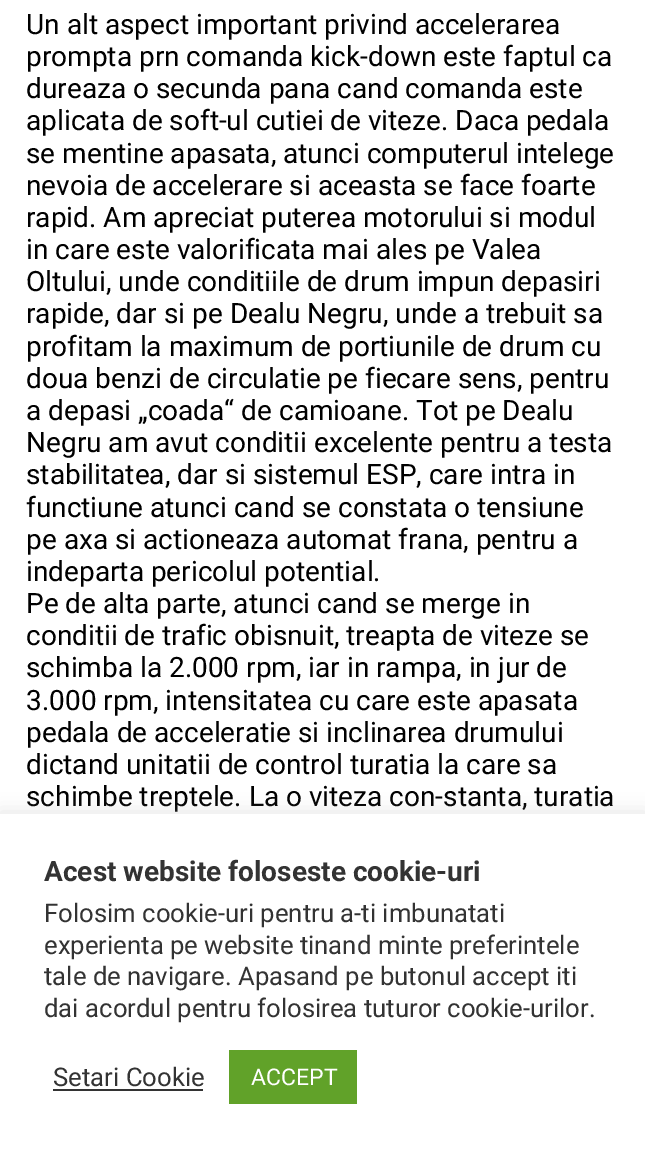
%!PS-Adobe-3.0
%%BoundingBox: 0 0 645 1156
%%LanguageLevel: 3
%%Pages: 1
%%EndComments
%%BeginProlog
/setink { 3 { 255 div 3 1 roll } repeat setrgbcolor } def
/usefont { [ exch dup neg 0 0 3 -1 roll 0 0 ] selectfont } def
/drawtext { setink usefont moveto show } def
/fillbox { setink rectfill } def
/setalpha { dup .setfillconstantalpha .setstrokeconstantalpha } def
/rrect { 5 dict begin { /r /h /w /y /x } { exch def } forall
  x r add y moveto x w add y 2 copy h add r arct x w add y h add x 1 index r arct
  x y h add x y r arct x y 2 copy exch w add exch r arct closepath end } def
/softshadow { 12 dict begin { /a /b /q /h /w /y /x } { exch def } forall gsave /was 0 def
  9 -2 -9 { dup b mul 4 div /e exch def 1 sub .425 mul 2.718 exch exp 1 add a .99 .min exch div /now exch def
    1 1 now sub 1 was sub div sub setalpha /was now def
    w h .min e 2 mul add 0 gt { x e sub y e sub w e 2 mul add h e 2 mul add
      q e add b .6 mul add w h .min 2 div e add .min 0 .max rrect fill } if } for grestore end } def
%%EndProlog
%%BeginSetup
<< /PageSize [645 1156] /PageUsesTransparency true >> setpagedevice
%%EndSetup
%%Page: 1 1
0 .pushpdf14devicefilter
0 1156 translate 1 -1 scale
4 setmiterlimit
0 0 645 1156 255 255 255 fillbox
(Un alt aspect important privind accelerarea) 26 34 /Roboto-Regular 28 0 0 0 drawtext
(prompta prn comanda kick-down este faptul ca) 26 66 /Roboto-Regular 28 0 0 0 drawtext
(dureaza o secunda pana cand comanda este) 26 98 /Roboto-Regular 28 0 0 0 drawtext
(aplicata de soft-ul cutiei de viteze. Daca pedala) 26 130 /Roboto-Regular 28 0 0 0 drawtext
(se mentine apasata, atunci computerul intelege) 26 163 /Roboto-Regular 28 0 0 0 drawtext
(nevoia de accelerare si aceasta se face foarte) 26 195 /Roboto-Regular 28 0 0 0 drawtext
(rapid. Am apreciat puterea motorului si modul) 26 227 /Roboto-Regular 28 0 0 0 drawtext
(in care este valorificata mai ales pe Valea) 26 259 /Roboto-Regular 28 0 0 0 drawtext
(Oltului, unde conditiile de drum impun depasiri) 26 291 /Roboto-Regular 28 0 0 0 drawtext
(rapide, dar si pe Dealu Negru, unde a trebuit sa) 26 323 /Roboto-Regular 28 0 0 0 drawtext
(profitam la maximum de portiunile de drum cu) 26 356 /Roboto-Regular 28 0 0 0 drawtext
(doua benzi de circulatie pe fiecare sens, pentru) 26 388 /Roboto-Regular 28 0 0 0 drawtext
(a depasi „coada“ de camioane. Tot pe Dealu) 26 420 /Roboto-Regular 28 0 0 0 drawtext
(Negru am avut conditii excelente pentru a testa) 26 452 /Roboto-Regular 28 0 0 0 drawtext
(stabilitatea, dar si sistemul ESP, care intra in) 26 484 /Roboto-Regular 28 0 0 0 drawtext
(functiune atunci cand se constata o tensiune) 26 517 /Roboto-Regular 28 0 0 0 drawtext
(pe axa si actioneaza automat frana, pentru a) 26 549 /Roboto-Regular 28 0 0 0 drawtext
(indeparta pericolul potential.) 26 581 /Roboto-Regular 28 0 0 0 drawtext
(Pe de alta parte, atunci cand se merge in) 26 613 /Roboto-Regular 28 0 0 0 drawtext
(conditii de trafic obisnuit, treapta de viteze se) 26 645 /Roboto-Regular 28 0 0 0 drawtext
(schimba la 2.000 rpm, iar in rampa, in jur de) 26 677 /Roboto-Regular 28 0 0 0 drawtext
(3.000 rpm, intensitatea cu care este apasata) 26 710 /Roboto-Regular 28 0 0 0 drawtext
(pedala de acceleratie si inclinarea drumului) 26 742 /Roboto-Regular 28 0 0 0 drawtext
(dictand unitatii de control turatia la care sa) 26 774 /Roboto-Regular 28 0 0 0 drawtext
(schimbe treptele. La o viteza con-stanta, turatia) 26 806 /Roboto-Regular 28 0 0 0 drawtext
172 171 171 setink
0 812 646 343 0 9 0.3 softshadow
0 814 645 342 255 255 255 fillbox
(Acest website foloseste cookie-uri) 44 881 /Roboto-Bold 28 51 51 51 drawtext
(Folosim cookie-uri pentru a-ti imbunatati) 44 922 /Roboto-Regular 25.7 51 51 51 drawtext
(experienta pe website tinand minte preferintele) 44 954 /Roboto-Regular 25.7 51 51 51 drawtext
(tale de navigare. Apasand pe butonul accept iti) 44 985 /Roboto-Regular 25.7 51 51 51 drawtext
(dai acordul pentru folosirea tuturor cookie-urilor.) 44 1017 /Roboto-Regular 25.7 51 51 51 drawtext
(Setari Cookie) 53 1086 /Roboto-Regular 25.7 51 51 51 drawtext
53 1089 150 2 51 51 51 fillbox
229 1050 128 54 97 162 41 fillbox
(ACCEPT) 251 1085 /Roboto-Regular 23 255 255 255 drawtext
.poppdf14devicefilter showpage
%%EOF
